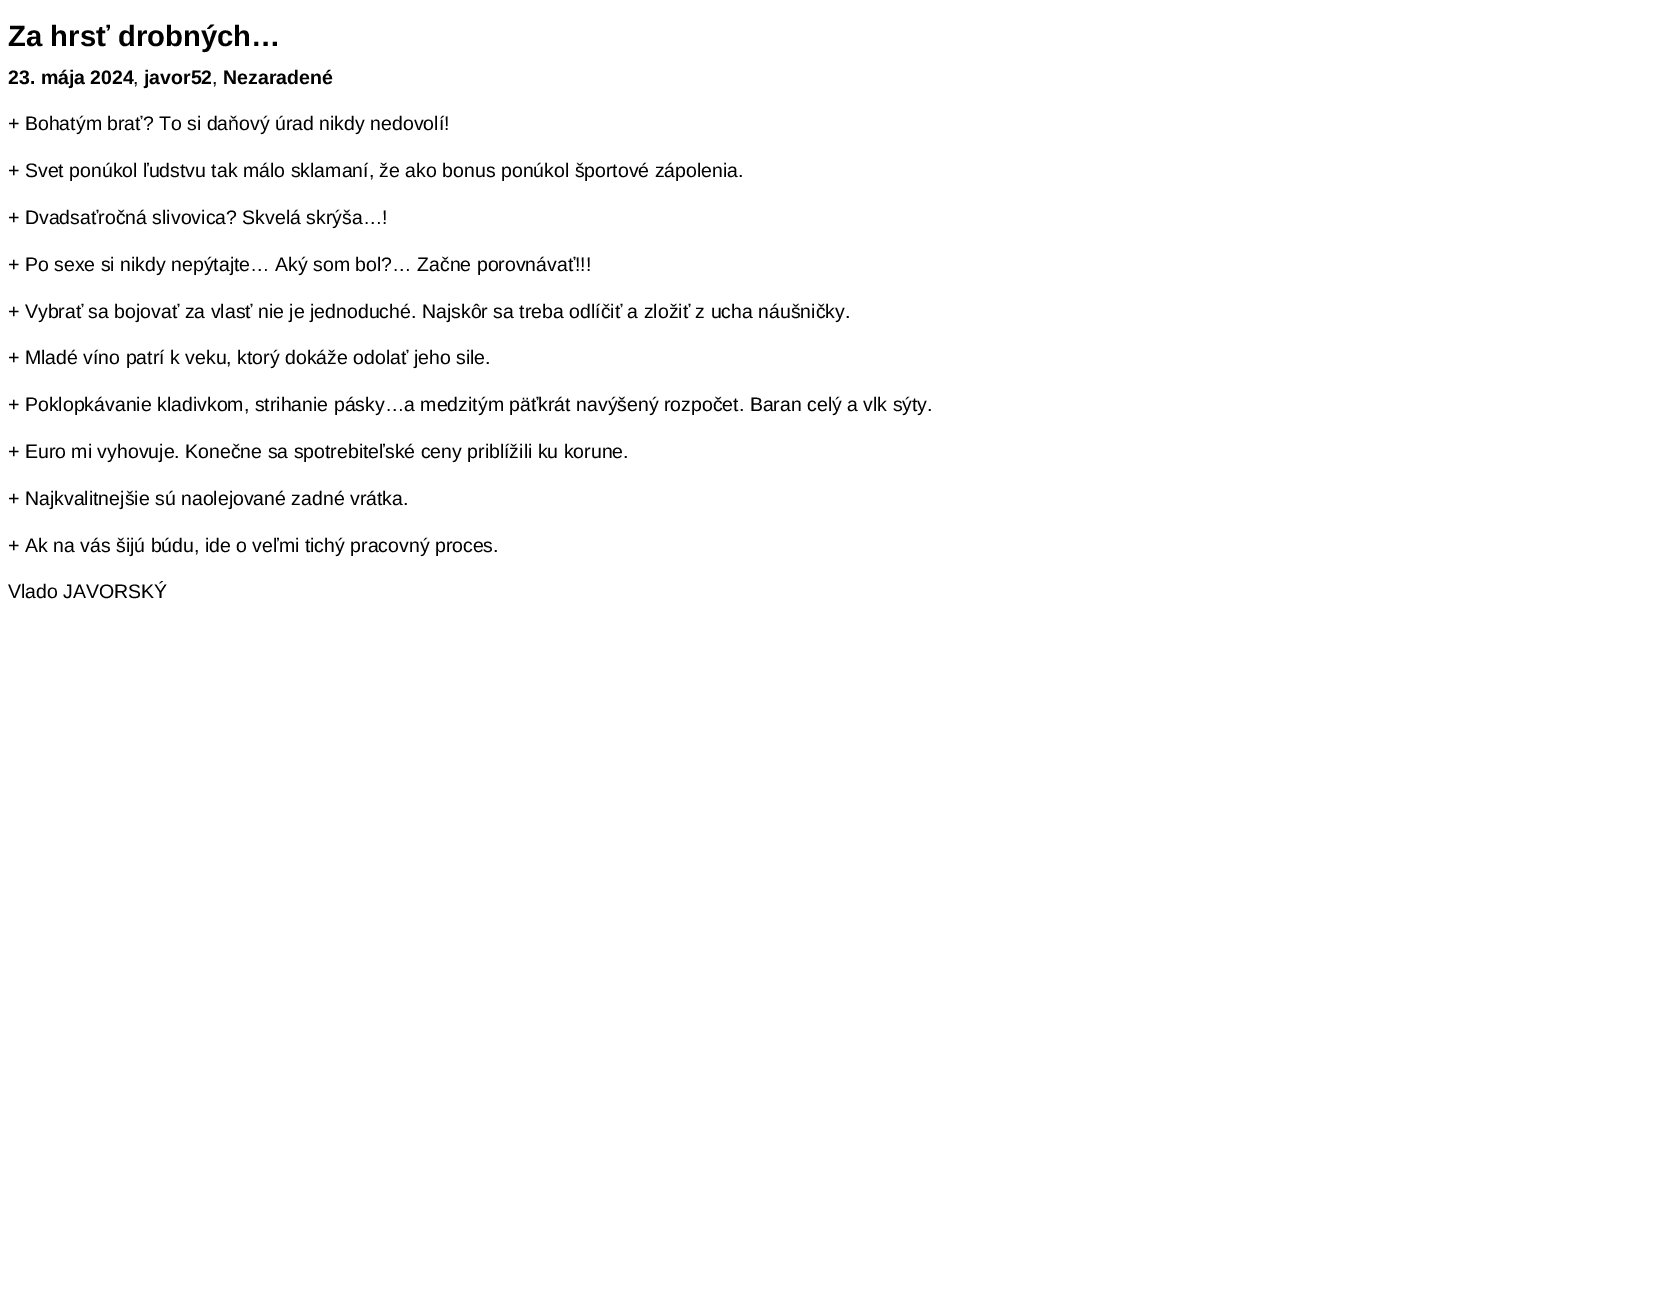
%!PS-Adobe-3.0
%%BoundingBox: 0 0 1675 1296
%%LanguageLevel: 3
%%Pages: 1
%%EndComments
%%BeginProlog
/setink { 3 { 255 div 3 1 roll } repeat setrgbcolor } def
/usefont { [ exch dup neg 0 0 3 -1 roll 0 0 ] selectfont } def
/drawtext { setink usefont moveto show } def
/fillbox { setink rectfill } def
%%EndProlog
%%BeginSetup
<< /PageSize [1675 1296] >> setpagedevice
%%EndSetup
%%Page: 1 1
0 1296 translate 1 -1 scale
4 setmiterlimit
0 0 1675 1296 255 255 255 fillbox
(Za hrsť drobných…) 8 46 /LiberationSans-Bold 29.25 0 0 0 drawtext
(23. mája 2024) 8 84 /LiberationSans-Bold 19.5 0 0 0 drawtext
(,) 133 84 /LiberationSans-Regular 19.5 0 0 0 drawtext
(javor52) 144 84 /LiberationSans-Bold 19.5 0 0 0 drawtext
(,) 212 84 /LiberationSans-Regular 19.5 0 0 0 drawtext
(Nezaradené) 223 84 /LiberationSans-Bold 19.5 0 0 0 drawtext
(+ Bohatým brať? To si daňový úrad nikdy nedovolí!) 8 130 /LiberationSans-Regular 19.5 0 0 0 drawtext
(+ Svet ponúkol ľudstvu tak málo sklamaní, že ako bonus ponúkol športové zápolenia.) 8 177 /LiberationSans-Regular 19.5 0 0 0 drawtext
(+ Dvadsaťročná slivovica? Skvelá skrýša…!) 8 224 /LiberationSans-Regular 19.5 0 0 0 drawtext
(+ Po sexe si nikdy nepýtajte… Aký som bol?… Začne porovnávať!!!) 8 271 /LiberationSans-Regular 19.5 0 0 0 drawtext
(+ Vybrať sa bojovať za vlasť nie je jednoduché. Najskôr sa treba odlíčiť a zložiť z ucha náušničky.) 8 318 /LiberationSans-Regular 19.5 0 0 0 drawtext
(+ Mladé víno patrí k veku, ktorý dokáže odolať jeho sile.) 8 364 /LiberationSans-Regular 19.5 0 0 0 drawtext
(+ Poklopkávanie kladivkom, strihanie pásky…a medzitým päťkrát navýšený rozpočet. Baran celý a vlk sýty.) 8 411 /LiberationSans-Regular 19.5 0 0 0 drawtext
(+ Euro mi vyhovuje. Konečne sa spotrebiteľské ceny priblížili ku korune.) 8 458 /LiberationSans-Regular 19.5 0 0 0 drawtext
(+ Najkvalitnejšie sú naolejované zadné vrátka.) 8 505 /LiberationSans-Regular 19.5 0 0 0 drawtext
(+ Ak na vás šijú búdu, ide o veľmi tichý pracovný proces.) 8 552 /LiberationSans-Regular 19.5 0 0 0 drawtext
(Vlado JAVORSKÝ) 8 598 /LiberationSans-Regular 19.5 0 0 0 drawtext
showpage
%%EOF
